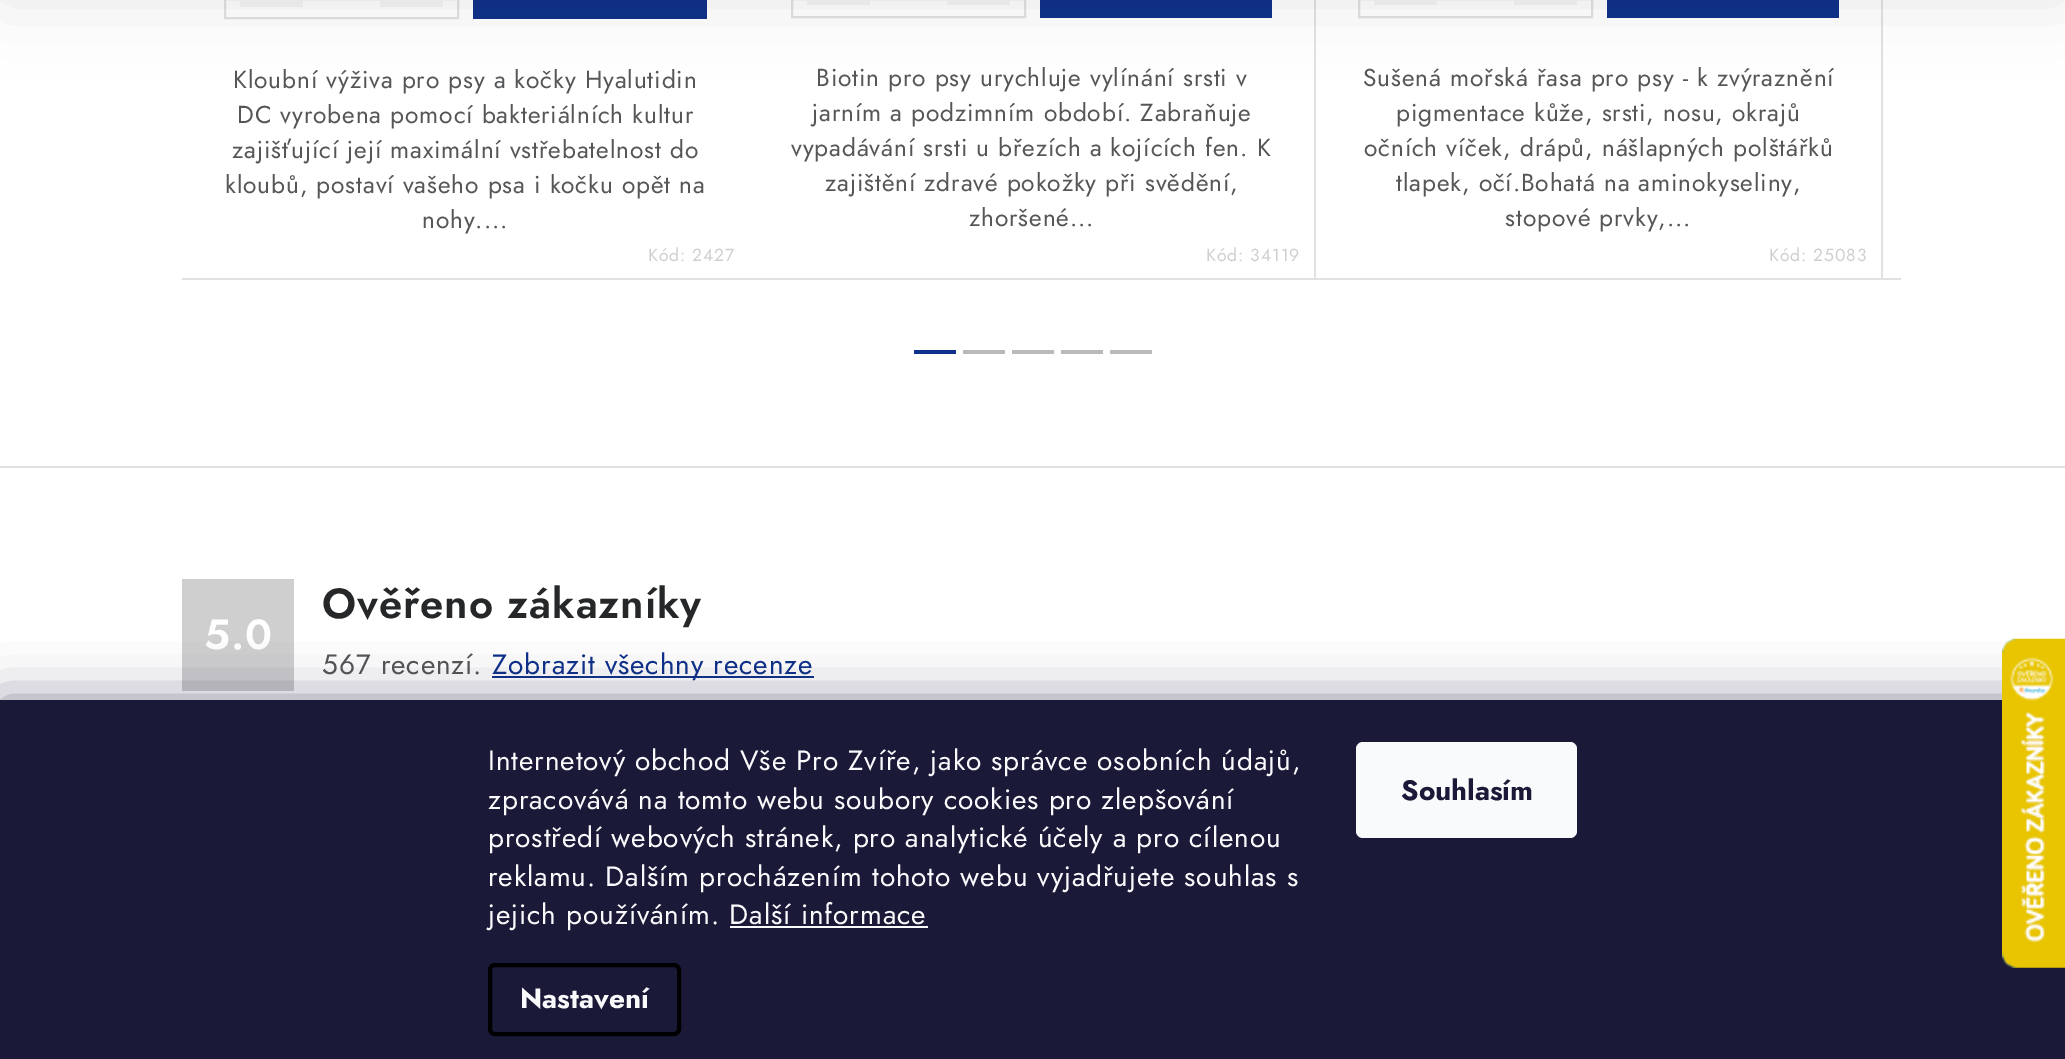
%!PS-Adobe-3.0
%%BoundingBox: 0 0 2065 1059
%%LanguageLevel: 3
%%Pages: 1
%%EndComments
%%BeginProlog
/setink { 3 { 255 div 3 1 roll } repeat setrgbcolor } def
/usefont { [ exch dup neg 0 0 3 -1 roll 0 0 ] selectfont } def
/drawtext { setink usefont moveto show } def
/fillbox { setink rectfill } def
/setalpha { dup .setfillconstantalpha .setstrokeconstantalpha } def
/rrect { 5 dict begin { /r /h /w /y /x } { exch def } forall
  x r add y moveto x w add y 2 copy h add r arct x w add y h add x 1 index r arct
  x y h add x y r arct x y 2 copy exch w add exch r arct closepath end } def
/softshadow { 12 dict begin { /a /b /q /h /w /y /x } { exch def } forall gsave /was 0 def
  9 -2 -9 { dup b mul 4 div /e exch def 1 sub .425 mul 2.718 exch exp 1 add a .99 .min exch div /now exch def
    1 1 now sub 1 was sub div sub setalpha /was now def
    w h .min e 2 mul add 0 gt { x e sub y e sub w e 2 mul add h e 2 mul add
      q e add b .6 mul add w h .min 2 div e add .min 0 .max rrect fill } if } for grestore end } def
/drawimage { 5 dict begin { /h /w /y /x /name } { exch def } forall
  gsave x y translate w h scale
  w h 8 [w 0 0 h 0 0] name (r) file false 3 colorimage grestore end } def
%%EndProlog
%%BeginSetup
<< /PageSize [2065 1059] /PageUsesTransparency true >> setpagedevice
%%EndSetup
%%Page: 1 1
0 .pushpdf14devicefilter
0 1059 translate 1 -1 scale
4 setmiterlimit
0 0 2065 1059 255 255 255 fillbox
225 225 226 setink
2 setlinewidth
225 -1 233 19 rectstroke
240 0 63 7 245 245 245 fillbox
380 0 63 7 245 245 245 fillbox
473 0 234 19 14 49 138 fillbox
1314 0 2 280 225 225 226 fillbox
792 -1 233 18 rectstroke
807 0 63 5 245 245 245 fillbox
947 0 63 5 245 245 245 fillbox
1040 0 232 18 14 49 138 fillbox
1881 0 2 280 225 225 226 fillbox
1359 -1 233 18 rectstroke
1374 0 63 5 245 245 245 fillbox
1514 0 63 5 245 245 245 fillbox
1607 0 232 18 14 49 138 fillbox
0 0 0 setink
0 -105 2065 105 0 35 0.1 softshadow
182 278 567 2 225 225 226 fillbox
/Jost-Regular 24.5 usefont
85 86 88 setink
233 88 moveto 0.88 0 (Kloubní výživa pro psy a kočky Hyalutidin) ashow
237 123 moveto 0.88 0 (DC vyrobena pomocí bakteriálních kultur) ashow
232 158 moveto 0.88 0 (zajišťující její maximální vstřebatelnost do) ashow
225 193 moveto 0.88 0 (kloubů, postaví vašeho psa i kočku opět na) ashow
422 228 moveto 0.88 0 (nohy....) ashow
/Jost-Regular 17.5 usefont
207 207 207 setink
648 261 moveto 0.88 0 (Kód: 2427) ashow
749 278 567 2 225 225 226 fillbox
/Jost-Regular 24.5 usefont
85 86 88 setink
816 86 moveto 0.88 0 (Biotin pro psy urychluje vylínání srsti v) ashow
812 121 moveto 0.88 0 (jarním a podzimním období. Zabraňuje) ashow
791 156 moveto 0.88 0 (vypadávání srsti u březích a kojících fen. K) ashow
825 191 moveto 0.88 0 (zajištění zdravé pokožky při svědění,) ashow
969 226 moveto 0.88 0 (zhoršené...) ashow
/Jost-Regular 17.5 usefont
207 207 207 setink
1206 261 moveto 0.88 0 (Kód: 34119) ashow
1316 278 585 2 225 225 226 fillbox
/Jost-Regular 24.5 usefont
85 86 88 setink
1363 86 moveto 0.88 0 (Sušená mořská řasa pro psy - k zvýraznění) ashow
1396 121 moveto 0.88 0 (pigmentace kůže, srsti, nosu, okrajů) ashow
1364 156 moveto 0.88 0 (očních víček, drápů, nášlapných polštářků) ashow
1396 191 moveto 0.88 0 (tlapek, očí.Bohatá na aminokyseliny,) ashow
1505 226 moveto 0.88 0 (stopové prvky,...) ashow
/Jost-Regular 17.5 usefont
207 207 207 setink
1769 261 moveto 0.88 0 (Kód: 25083) ashow
914 350 42 4 14 49 138 fillbox
963 350 42 4 185 186 187 fillbox
1012 350 42 4 185 186 187 fillbox
1061 350 42 4 185 186 187 fillbox
1110 350 42 4 185 186 187 fillbox
0 466 2065 2 225 225 226 fillbox
182 579 112 112 207 207 207 fillbox
/Jost-SemiBold 42 usefont
255 255 255 setink
204 649 moveto 0.88 0 (5.0) ashow
37 39 41 setink
322 618 moveto 0.88 0 (Ověřeno zákazníky) ashow
/Jost-Regular 28 usefont
85 86 88 setink
322 674 moveto 0.88 0 (567 recenzí.) ashow
492 676 322 2 14 49 138 fillbox
492 674 moveto 0.88 0 (Zobrazit všechny recenze) ashow
27 25 57 setink
0 700 2065 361 0 26 0.5 softshadow
0 700 2065 359 26 25 55 fillbox
248 250 251 setink
488 770 moveto 0.88 0 (Internetový obchod Vše Pro Zvíře, jako správce osobních údajů,) ashow
488 809 moveto 0.88 0 (zpracovává na tomto webu soubory cookies pro zlepšování) ashow
488 847 moveto 0.88 0 (prostředí webových stránek, pro analytické účely a pro cílenou) ashow
488 886 moveto 0.88 0 (reklamu. Dalším procházením tohoto webu vyjadřujete souhlas s) ashow
488 924 moveto 0.88 0 (jejich používáním. Další informace) ashow
730 926 198 2 248 250 251 fillbox
0 0 0 setink
4 setlinewidth
490 965 189 69 5 rrect stroke
(Nastavení) 520 1008 /Jost-Bold 28 248 250 251 drawtext
1356 742 221 96 7 rrect fill
(Souhlasím) 1401 800 /Jost-Bold 28 26 25 55 drawtext
(assets/img1.rgb) 2002 638 63 330 drawimage
.poppdf14devicefilter showpage
%%EOF
